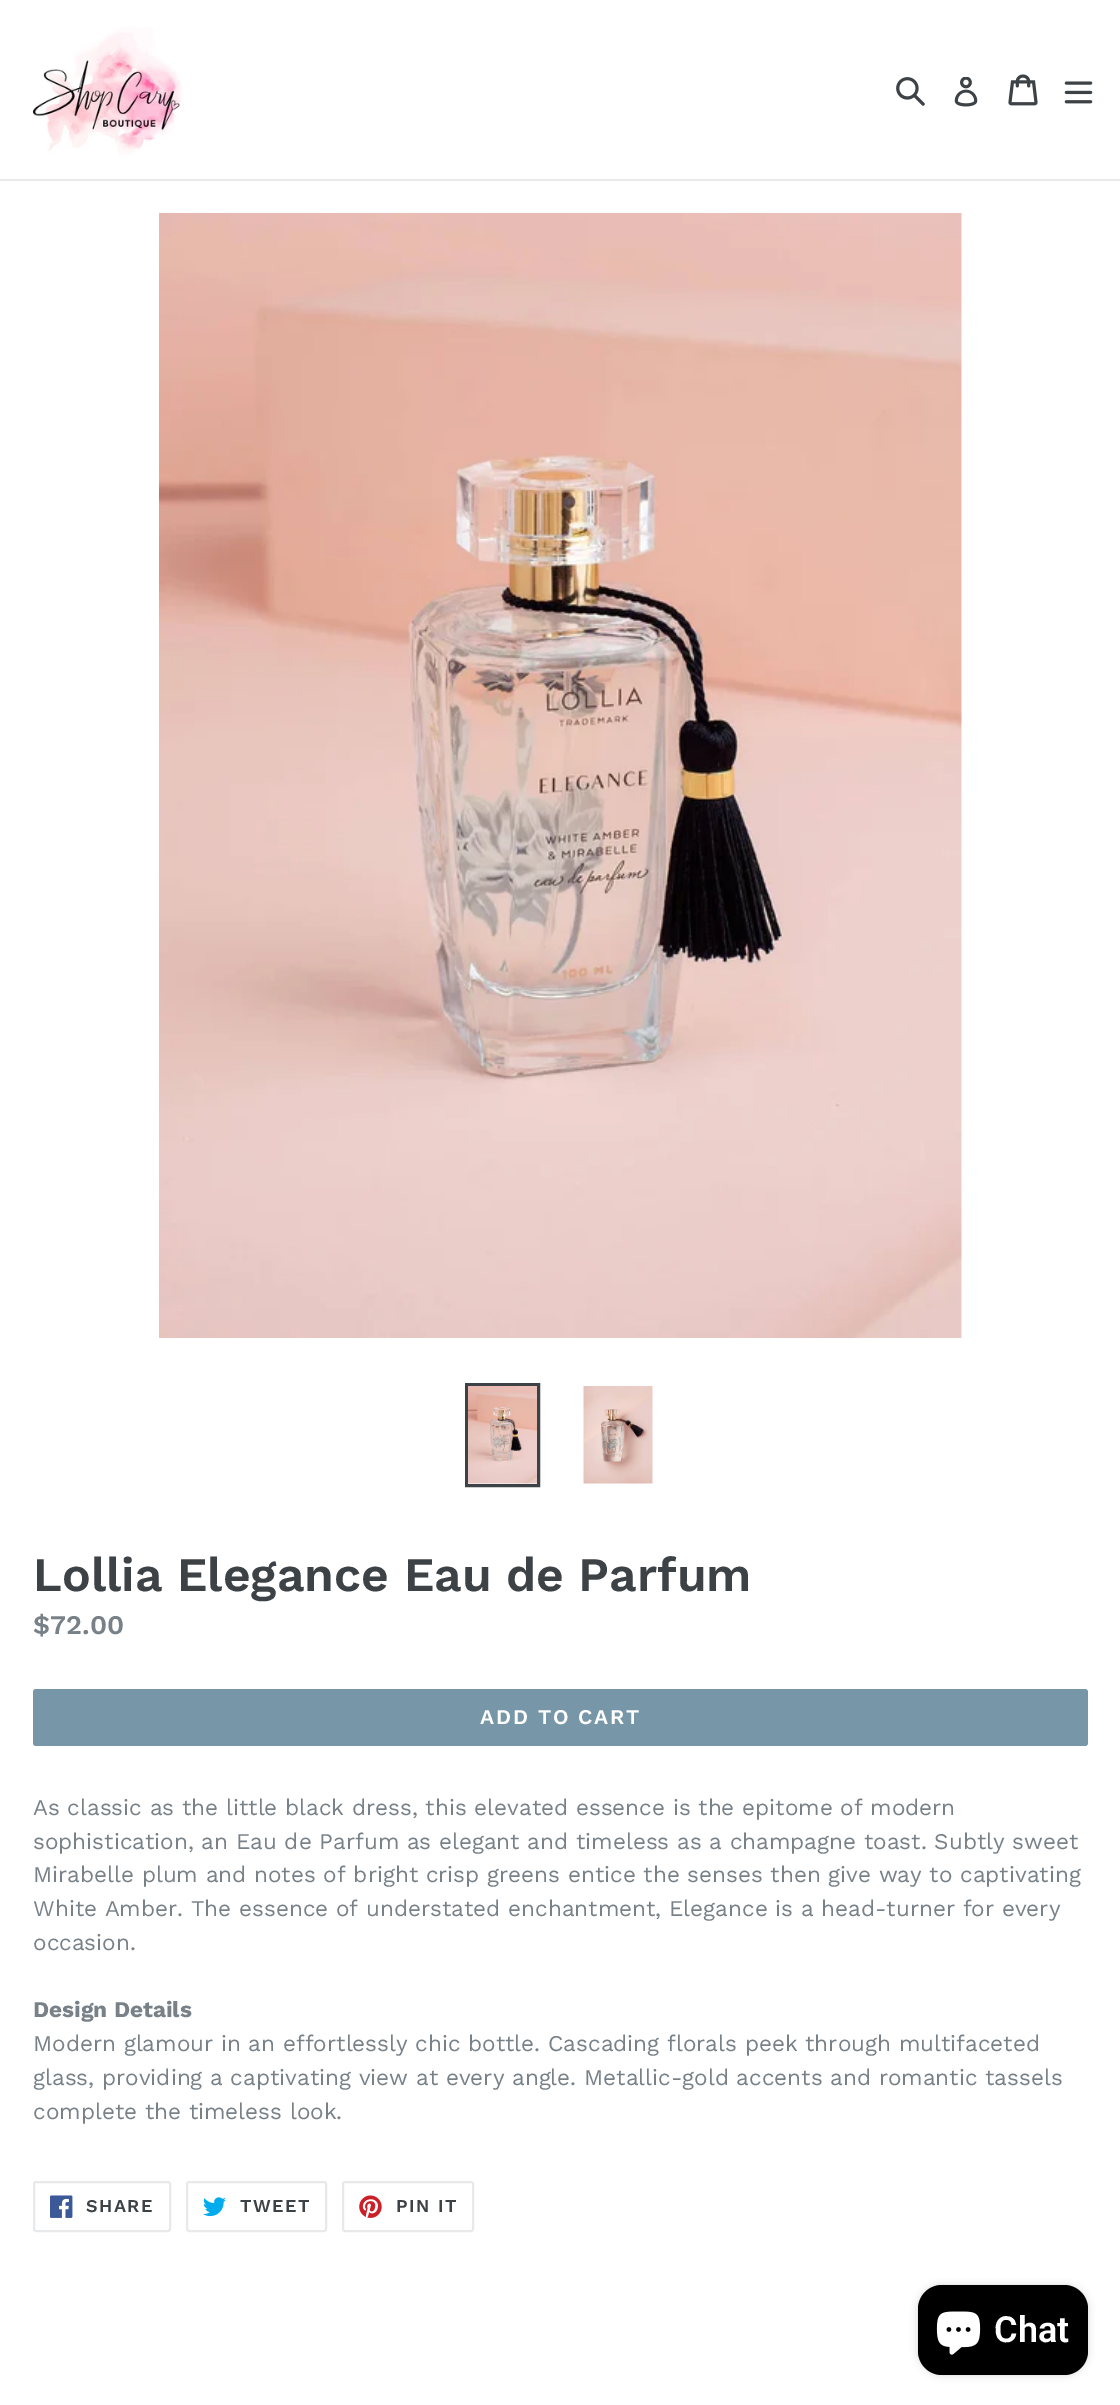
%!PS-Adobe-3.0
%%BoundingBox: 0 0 1120 2405
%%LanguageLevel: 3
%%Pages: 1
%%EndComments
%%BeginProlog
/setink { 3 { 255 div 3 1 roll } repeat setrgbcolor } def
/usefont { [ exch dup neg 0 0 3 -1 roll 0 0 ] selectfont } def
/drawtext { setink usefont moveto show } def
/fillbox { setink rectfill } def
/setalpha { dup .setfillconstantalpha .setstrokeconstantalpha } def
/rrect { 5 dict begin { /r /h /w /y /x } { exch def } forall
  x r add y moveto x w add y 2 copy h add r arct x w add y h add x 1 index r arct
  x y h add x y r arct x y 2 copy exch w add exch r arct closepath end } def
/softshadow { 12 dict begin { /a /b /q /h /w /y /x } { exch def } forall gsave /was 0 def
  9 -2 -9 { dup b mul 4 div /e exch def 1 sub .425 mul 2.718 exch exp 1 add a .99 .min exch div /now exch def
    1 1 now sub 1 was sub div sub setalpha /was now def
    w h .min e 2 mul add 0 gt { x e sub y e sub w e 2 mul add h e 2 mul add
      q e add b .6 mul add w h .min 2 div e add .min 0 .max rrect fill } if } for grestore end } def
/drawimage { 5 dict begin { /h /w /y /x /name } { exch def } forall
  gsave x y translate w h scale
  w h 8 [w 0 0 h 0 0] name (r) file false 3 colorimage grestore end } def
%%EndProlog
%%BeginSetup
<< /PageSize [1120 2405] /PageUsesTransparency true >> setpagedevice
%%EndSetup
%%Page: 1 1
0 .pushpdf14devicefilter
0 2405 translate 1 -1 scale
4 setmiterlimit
0 0 1120 2405 255 255 255 fillbox
0 179 1120 2 232 233 235 fillbox
(assets/img1.rgb) 33 27 150 128 drawimage
(assets/img2.rgb) 896 77 29 29 drawimage
(assets/img3.rgb) 954 77 24 30 drawimage
(assets/img4.rgb) 1008 74 30 32 drawimage
(assets/img5.rgb) 1064 81 29 23 drawimage
(assets/img6.rgb) 159 213 803 1125 drawimage
61 66 70 setink
3 setlinewidth
466.5 1384.5 72 101 rectstroke
(assets/img7.rgb) 468 1386 69 98 drawimage
(assets/img8.rgb) 583 1386 70 98 drawimage
(Lollia Elegance Eau de Parfum) 33 1591 /WorkSans-SemiBold 48 61 66 70 drawtext
($72.00) 33 1634 /WorkSans-SemiBold 27 120 129 136 drawtext
119 150 168 setink
33 1689 1055 57 3 rrect fill
/WorkSans-SemiBold 21 usefont
255 255 255 setink
480 1724 moveto 1.75 0 (ADD TO CART) ashow
(As classic as the little black dress, this elevated essence is the epitome of modern) 33 1815 /WorkSans-Regular 22.5 120 129 136 drawtext
(sophistication, an Eau de Parfum as elegant and timeless as a champagne toast. Subtly sweet) 33 1849 /WorkSans-Regular 22.5 120 129 136 drawtext
(Mirabelle plum and notes of bright crisp greens entice the senses then give way to captivating) 33 1882 /WorkSans-Regular 22.5 120 129 136 drawtext
(White Amber. The essence of understated enchantment, Elegance is a head-turner for every) 33 1916 /WorkSans-Regular 22.5 120 129 136 drawtext
(occasion.) 33 1950 /WorkSans-Regular 22.5 120 129 136 drawtext
(Design Details) 33 2017 /WorkSans-Bold 22.5 120 129 136 drawtext
(Modern glamour in an effortlessly chic bottle. Cascading florals peek through multifaceted) 33 2051 /WorkSans-Regular 22.5 120 129 136 drawtext
(glass, providing a captivating view at every angle. Metallic-gold accents and romantic tassels) 33 2085 /WorkSans-Regular 22.5 120 129 136 drawtext
(complete the timeless look.) 33 2119 /WorkSans-Regular 22.5 120 129 136 drawtext
232 233 235 setink
2 setlinewidth
34 2182 136 49 2 rrect stroke
(assets/img9.rgb) 50 2195 23 23 drawimage
/WorkSans-SemiBold 18 usefont
61 66 70 setink
86 2212 moveto 1.5 0 (SHARE) ashow
232 233 235 setink
187 2182 139 49 2 rrect stroke
(assets/img10.rgb) 203 2197 23 20 drawimage
61 66 70 setink
240 2212 moveto 1.5 0 (TWEET) ashow
232 233 235 setink
343 2182 130 49 2 rrect stroke
(assets/img11.rgb) 359 2195 23 23 drawimage
61 66 70 setink
396 2212 moveto 1.5 0 (PIN IT) ashow
0 0 0 setink
918 2285 170 90 24 4 0.15 softshadow
918 2285 170 90 24 rrect fill
(assets/img12.rgb) 936 2311 45 44 drawimage
(Chat) 994 2342 /Roboto-SemiBold 36 255 255 255 drawtext
.poppdf14devicefilter showpage
%%EOF
